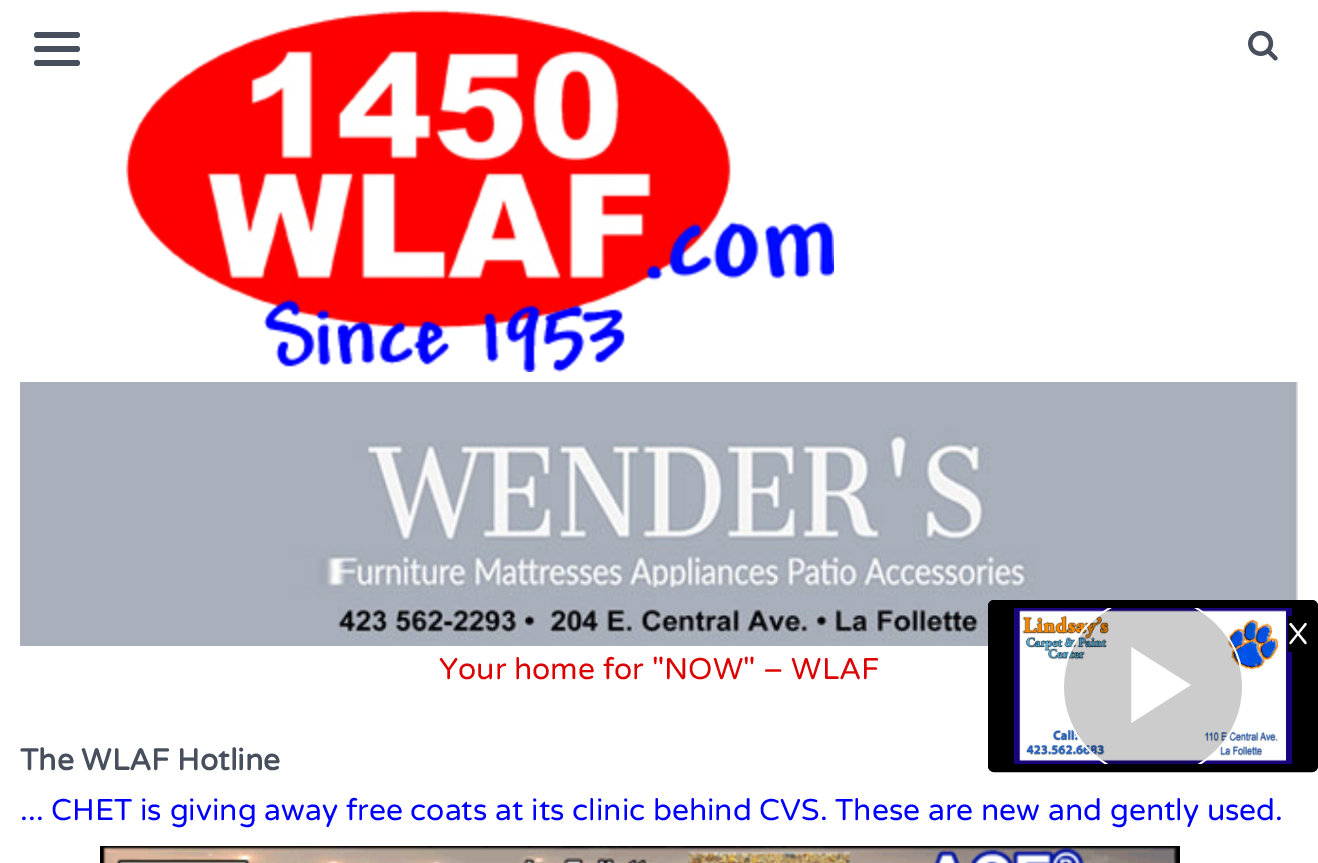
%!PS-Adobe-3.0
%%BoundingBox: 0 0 1318 863
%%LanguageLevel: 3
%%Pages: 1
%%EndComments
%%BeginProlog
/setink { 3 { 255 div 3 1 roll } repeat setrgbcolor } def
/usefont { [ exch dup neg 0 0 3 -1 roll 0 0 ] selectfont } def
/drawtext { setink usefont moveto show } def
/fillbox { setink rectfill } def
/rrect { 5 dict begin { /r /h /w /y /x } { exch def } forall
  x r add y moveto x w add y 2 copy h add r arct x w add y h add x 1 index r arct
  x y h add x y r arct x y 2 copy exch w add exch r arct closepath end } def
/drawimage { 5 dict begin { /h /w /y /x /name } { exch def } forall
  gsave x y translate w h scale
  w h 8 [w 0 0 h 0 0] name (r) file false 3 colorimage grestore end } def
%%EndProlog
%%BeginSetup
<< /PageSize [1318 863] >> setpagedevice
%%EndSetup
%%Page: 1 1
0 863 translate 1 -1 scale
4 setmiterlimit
0 0 1318 863 255 255 255 fillbox
71 78 92 setink
34 46 46 6 3 rrect fill
34 32 46 6 3 rrect fill
34 60 46 6 3 rrect fill
(assets/img1.rgb) 1248 30 30 31 drawimage
(assets/img2.rgb) 126 10 708 362 drawimage
(assets/img3.rgb) 20 382 1278 264 drawimage
0 0 0 setink
992 604 322 164 2 rrect gsave fill grestore
8 setlinewidth
stroke
(assets/img4.rgb) 1014 608 278 156 drawimage
1288 616 4 36 0 0 0 fillbox
(X) 1288 644 /VarelaRound-Regular 30 255 255 255 drawtext
(Your home for "NOW" – WLAF) 439 679 /VarelaRound-Regular 30 221 0 0 drawtext
(The WLAF Hotline) 20 770 /VarelaRound-Bold 30 71 78 92 drawtext
(... CHET is giving away free coats at its clinic behind CVS. These are new and gently used.) 20 820 /VarelaRound-Regular 30 0 0 255 drawtext
(assets/img5.rgb) 100 846 1080 17 drawimage
showpage
%%EOF
